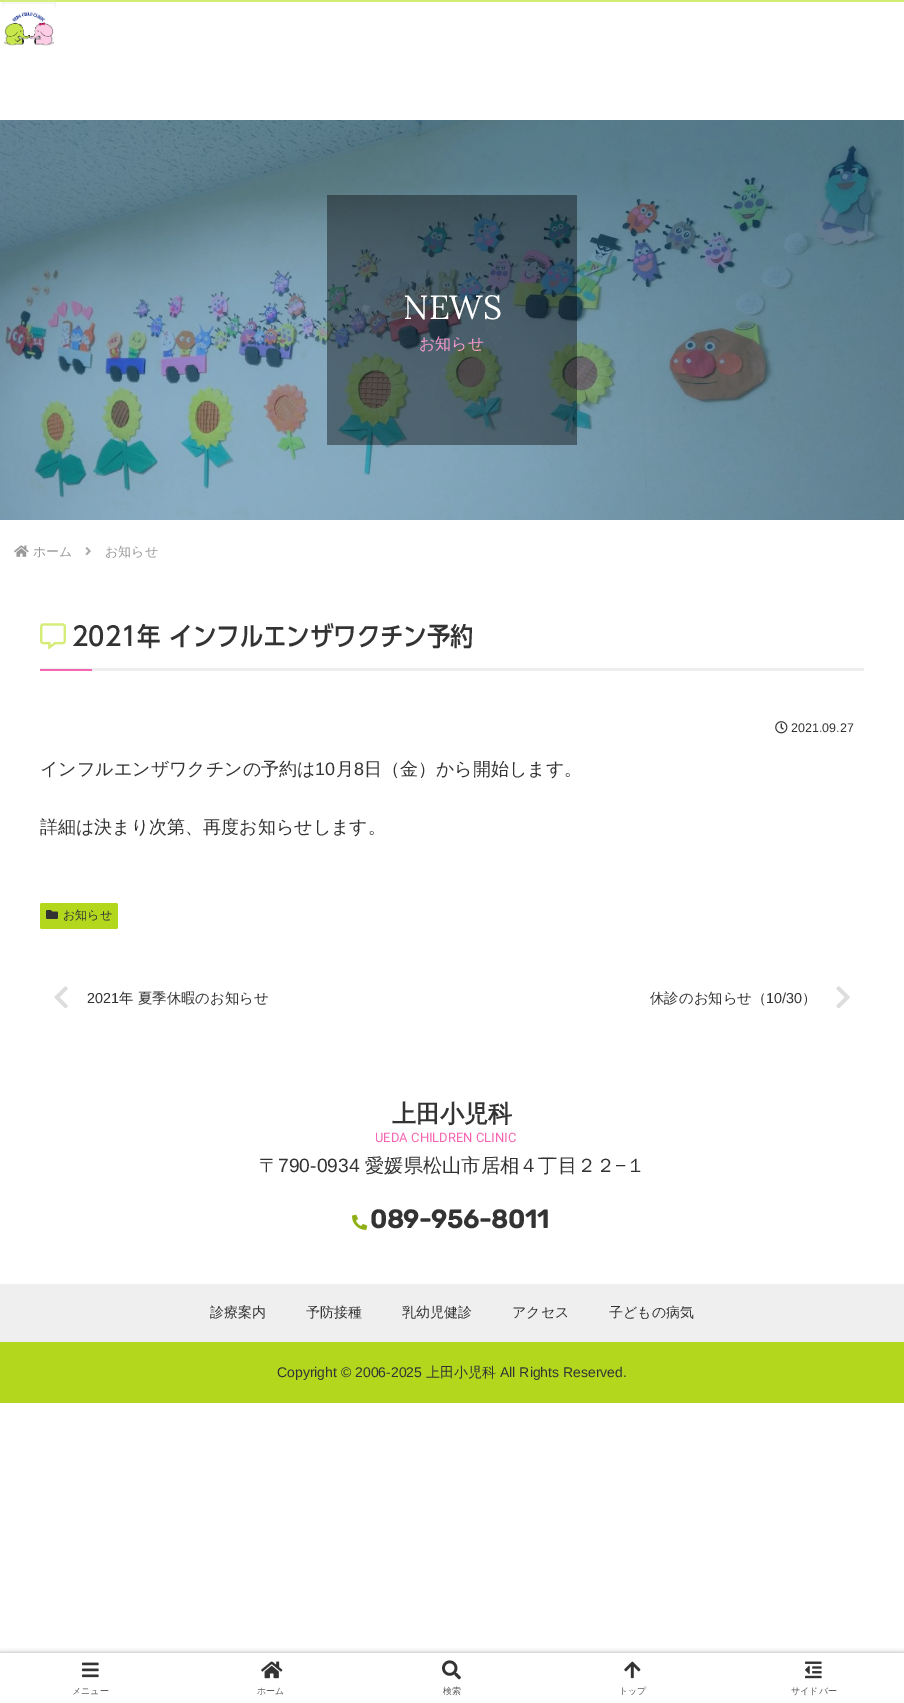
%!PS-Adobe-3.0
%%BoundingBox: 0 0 904 1703
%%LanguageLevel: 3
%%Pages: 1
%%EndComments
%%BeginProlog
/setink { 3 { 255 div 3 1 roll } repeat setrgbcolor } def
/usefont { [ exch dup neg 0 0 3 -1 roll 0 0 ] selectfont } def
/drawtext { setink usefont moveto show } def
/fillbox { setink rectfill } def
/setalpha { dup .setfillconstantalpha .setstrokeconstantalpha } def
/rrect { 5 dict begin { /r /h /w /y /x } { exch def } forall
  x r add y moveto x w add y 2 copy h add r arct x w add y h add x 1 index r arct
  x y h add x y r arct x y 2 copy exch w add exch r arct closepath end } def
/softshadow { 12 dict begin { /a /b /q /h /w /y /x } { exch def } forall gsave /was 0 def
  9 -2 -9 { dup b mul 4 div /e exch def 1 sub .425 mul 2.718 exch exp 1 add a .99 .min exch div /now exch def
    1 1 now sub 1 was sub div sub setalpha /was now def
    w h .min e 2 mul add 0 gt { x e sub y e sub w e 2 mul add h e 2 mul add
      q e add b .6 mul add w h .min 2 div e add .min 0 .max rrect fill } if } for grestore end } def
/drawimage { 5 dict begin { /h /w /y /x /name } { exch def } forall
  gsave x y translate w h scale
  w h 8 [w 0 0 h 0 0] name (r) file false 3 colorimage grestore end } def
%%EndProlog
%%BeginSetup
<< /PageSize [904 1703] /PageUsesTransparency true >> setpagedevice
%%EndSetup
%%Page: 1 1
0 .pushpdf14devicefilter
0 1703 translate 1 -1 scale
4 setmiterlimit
0 0 904 1703 255 255 255 fillbox
0 0 904 2 211 236 115 fillbox
(assets/img1.rgb) 2 0 54 46 drawimage
(assets/img2.rgb) 0 120 904 400 drawimage
0.4 setalpha
327 195 250 250 0 0 0 fillbox
1 setalpha
(NEWS) 403 319 /Lora-Regular 33.5 255 255 255 drawtext
(お知らせ) 419 349 /WenQuanYiZenHei-Medium 16 248 154 203 drawtext
(assets/img3.rgb) 14 545 15 12 drawimage
(ホーム) 33 556 /WenQuanYiZenHei-Medium 13 153 153 153 drawtext
(assets/img4.rgb) 85 547 6 9 drawimage
(お知らせ) 105 556 /WenQuanYiZenHei-Medium 13 153 153 153 drawtext
40 668 824 3 238 238 238 fillbox
(assets/img5.rgb) 40 623 26 27 drawimage
(2021年 インフルエンザワクチン予約) 72 646 /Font-Medium 26 51 51 51 drawtext
40 669 52 2 244 102 178 fillbox
(assets/img6.rgb) 775 721 13 13 drawimage
(2021.09.27) 791 732 /LiberationSans-Regular 12.5 51 51 51 drawtext
(インフルエンザワクチンの予約は) 40 775 /WenQuanYiZenHei-Medium 18 51 51 51 drawtext
(10) 315 775 /LiberationSans-Regular 18 51 51 51 drawtext
(月) 336 775 /WenQuanYiZenHei-Medium 18 51 51 51 drawtext
(8) 354 775 /LiberationSans-Regular 18 51 51 51 drawtext
(日（金）から開始します。) 364 775 /WenQuanYiZenHei-Medium 18 51 51 51 drawtext
(詳細は決まり次第、再度お知らせします。) 40 833 /WenQuanYiZenHei-Medium 18 51 51 51 drawtext
178 215 29 setink
40 903 78 26 2 rrect fill
(assets/img7.rgb) 46 910 12 9 drawimage
(お知らせ) 63 919 /WenQuanYiZenHei-Medium 12 51 51 51 drawtext
(assets/img8.rgb) 54 986 14 23 drawimage
(2021) 87 1003 /LiberationSans-Regular 14.4 51 51 51 drawtext
(年 夏季休暇のお知らせ) 119 1003 /WenQuanYiZenHei-Medium 14.4 51 51 51 drawtext
(休診のお知らせ（) 650 1003 /WenQuanYiZenHei-Medium 14.4 51 51 51 drawtext
(10/30) 766 1003 /LiberationSans-Regular 14.4 51 51 51 drawtext
(）) 802 1003 /WenQuanYiZenHei-Medium 14.4 51 51 51 drawtext
(assets/img9.rgb) 836 986 14 23 drawimage
(上田小児科) 392 1122 /WenQuanYiZenHei-Bold 24 51 51 51 drawtext
(UEDA CHILDREN CLINIC) 375 1142 /Roboto-Regular 13 244 102 178 drawtext
(〒) 259 1172 /WenQuanYiZenHei-Medium 19.25 51 51 51 drawtext
(790-0934) 278 1172 /LiberationSans-Regular 19.25 51 51 51 drawtext
(愛媛県松山市居相４丁目２２) 365 1172 /WenQuanYiZenHei-Medium 19.25 51 51 51 drawtext
(−) 615 1172 /LiberationSans-Regular 19.25 51 51 51 drawtext
(１) 626 1172 /WenQuanYiZenHei-Medium 19.25 51 51 51 drawtext
(assets/img10.rgb) 352 1214 16 16 drawimage
(089-956-8011) 370 1228 /Rubik-Bold 25.5 51 51 51 drawtext
0 1342 904 61 178 215 29 fillbox
0 1284 904 58 239 239 239 fillbox
(診療案内) 210 1317 /WenQuanYiZenHei-Medium 14 51 51 51 drawtext
(予防接種) 306 1317 /WenQuanYiZenHei-Medium 14 51 51 51 drawtext
(乳幼児健診) 402 1317 /WenQuanYiZenHei-Medium 14 51 51 51 drawtext
(アクセス) 512 1317 /WenQuanYiZenHei-Medium 14 51 51 51 drawtext
(子どもの病気) 609 1317 /WenQuanYiZenHei-Medium 14 51 51 51 drawtext
(Copyright © 2006-2025) 277 1377 /LiberationSans-Regular 14 51 51 51 drawtext
(上田小児科) 426 1377 /WenQuanYiZenHei-Medium 14 51 51 51 drawtext
(All Rights Reserved.) 500 1377 /LiberationSans-Regular 14 51 51 51 drawtext
gsave
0 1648 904 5 rectclip
169 169 169 setink
0 1653 904 50 0 2.5 1 softshadow
grestore
(assets/img11.rgb) 82 1662 17 16 drawimage
(メニュー) 72 1694 /WenQuanYiZenHei-Medium 9 92 92 92 drawtext
(assets/img12.rgb) 261 1661 22 18 drawimage
(ホーム) 257 1694 /WenQuanYiZenHei-Medium 9 92 92 92 drawtext
(assets/img13.rgb) 442 1660 19 20 drawimage
(検索) 443 1694 /WenQuanYiZenHei-Medium 9 92 92 92 drawtext
(assets/img14.rgb) 624 1661 17 18 drawimage
(トップ) 619 1694 /WenQuanYiZenHei-Medium 9 92 92 92 drawtext
(assets/img15.rgb) 805 1661 17 18 drawimage
(サイドバー) 791 1694 /WenQuanYiZenHei-Medium 9 92 92 92 drawtext
.poppdf14devicefilter showpage
%%EOF
